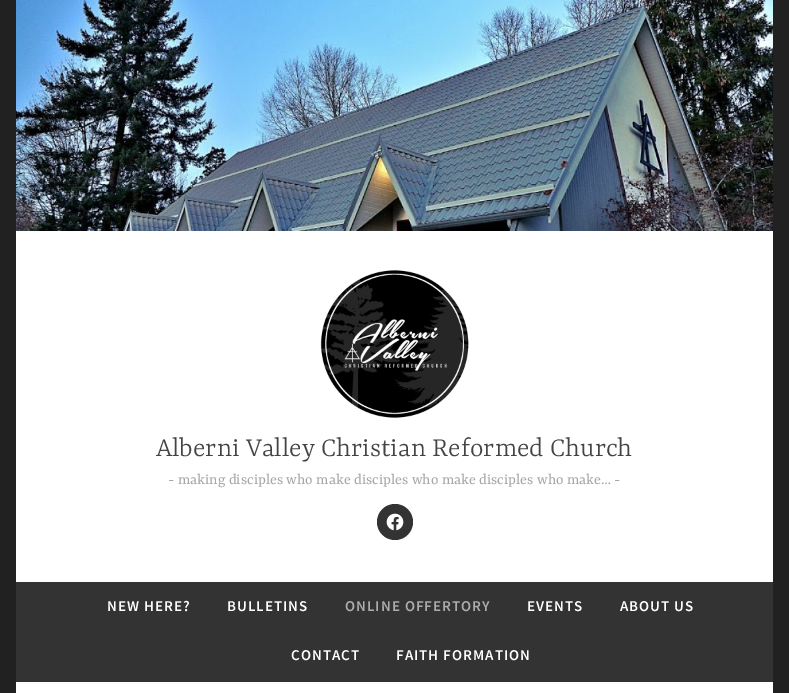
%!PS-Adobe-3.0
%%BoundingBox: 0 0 789 693
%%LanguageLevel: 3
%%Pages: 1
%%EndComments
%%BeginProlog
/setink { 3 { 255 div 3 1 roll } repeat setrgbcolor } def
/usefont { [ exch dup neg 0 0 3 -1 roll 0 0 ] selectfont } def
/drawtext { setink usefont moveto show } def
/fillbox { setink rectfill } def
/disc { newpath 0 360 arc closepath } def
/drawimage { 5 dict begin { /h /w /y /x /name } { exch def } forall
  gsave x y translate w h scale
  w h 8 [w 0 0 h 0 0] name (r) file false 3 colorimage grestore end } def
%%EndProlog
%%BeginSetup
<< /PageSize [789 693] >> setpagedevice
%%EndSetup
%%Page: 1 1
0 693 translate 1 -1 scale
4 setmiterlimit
0 0 789 693 33 33 33 fillbox
(assets/img1.rgb) 16 0 757 231 drawimage
16 231 757 351 255 255 255 fillbox
(assets/img2.rgb) 320 270 149 148 drawimage
(Alberni Valley Christian Reformed Church) 156 456 /Yrsa-Light 29 68 68 68 drawtext
(- making disciples who make disciples who make disciples who make… -) 168 484 /Yrsa-Regular 16 168 166 161 drawtext
51 51 51 setink
395 522 18 disc fill
(assets/img3.rgb) 386 513 18 18 drawimage
16 582 757 98 51 51 51 fillbox
16 680 757 2 49 49 49 fillbox
/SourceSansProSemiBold-SemiBold 15 usefont
255 255 255 setink
107 611 moveto 1 0 (NEW HERE?) ashow
227 611 moveto 1 0 (BULLETINS) ashow
173 173 173 setink
345 611 moveto 1 0 (ONLINE OFFERTORY) ashow
255 255 255 setink
527 611 moveto 1 0 (EVENTS) ashow
620 611 moveto 1 0 (ABOUT US) ashow
291 660 moveto 1 0 (CONTACT) ashow
396 660 moveto 1 0 (FAITH FORMATION) ashow
16 682 757 11 255 255 255 fillbox
showpage
%%EOF
